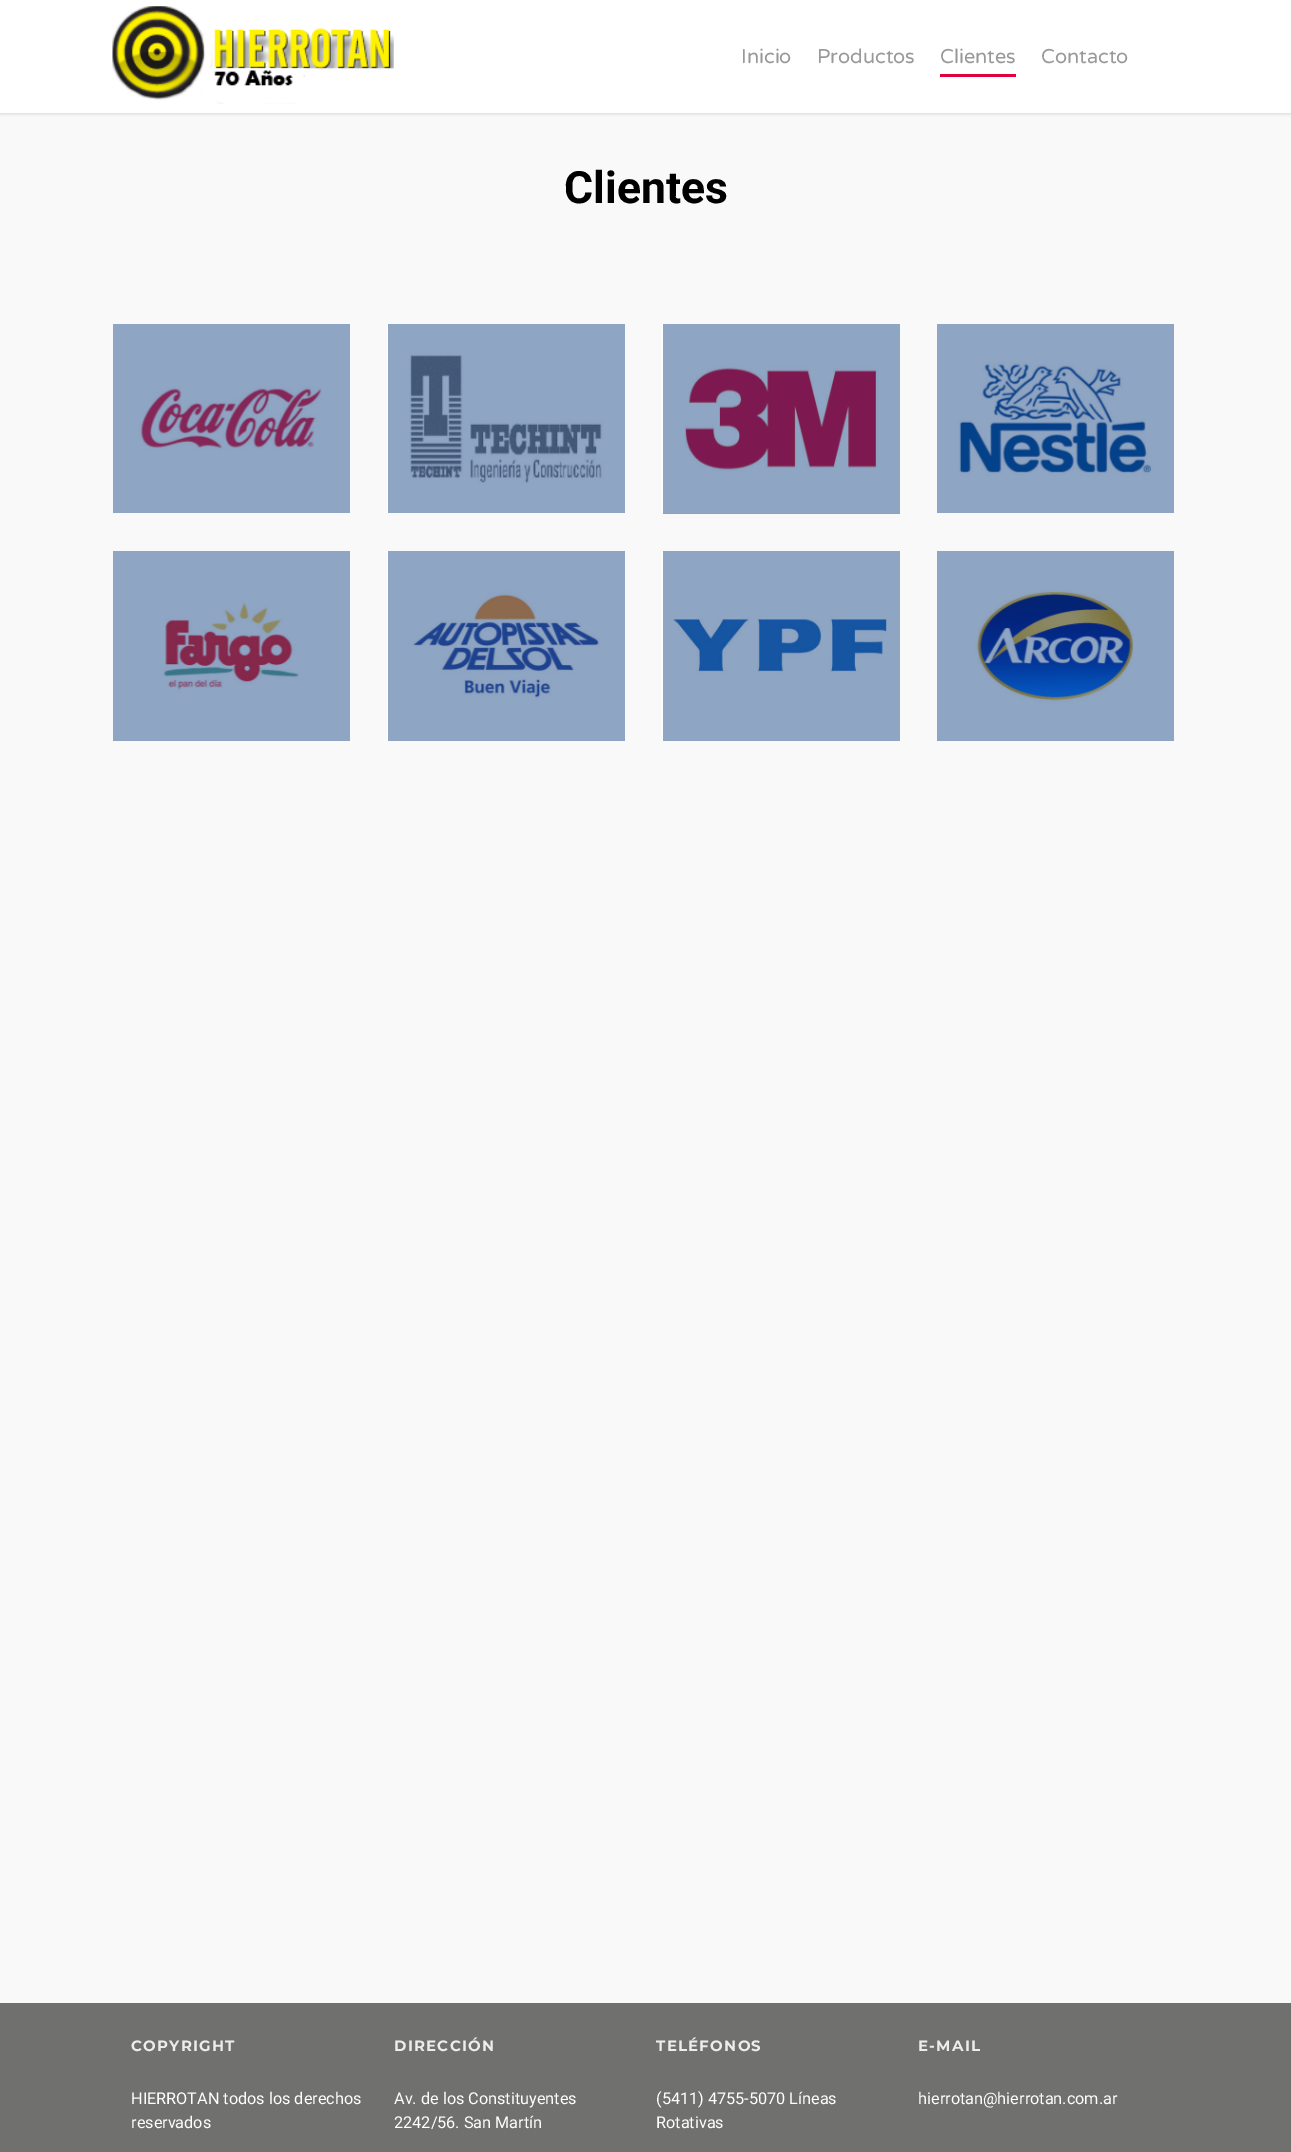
%!PS-Adobe-3.0
%%BoundingBox: 0 0 1291 2152
%%LanguageLevel: 3
%%Pages: 1
%%EndComments
%%BeginProlog
/setink { 3 { 255 div 3 1 roll } repeat setrgbcolor } def
/usefont { [ exch dup neg 0 0 3 -1 roll 0 0 ] selectfont } def
/drawtext { setink usefont moveto show } def
/fillbox { setink rectfill } def
/setalpha { dup .setfillconstantalpha .setstrokeconstantalpha } def
/rrect { 5 dict begin { /r /h /w /y /x } { exch def } forall
  x r add y moveto x w add y 2 copy h add r arct x w add y h add x 1 index r arct
  x y h add x y r arct x y 2 copy exch w add exch r arct closepath end } def
/softshadow { 12 dict begin { /a /b /q /h /w /y /x } { exch def } forall gsave /was 0 def
  9 -2 -9 { dup b mul 4 div /e exch def 1 sub .425 mul 2.718 exch exp 1 add a .99 .min exch div /now exch def
    1 1 now sub 1 was sub div sub setalpha /was now def
    w h .min e 2 mul add 0 gt { x e sub y e sub w e 2 mul add h e 2 mul add
      q e add b .6 mul add w h .min 2 div e add .min 0 .max rrect fill } if } for grestore end } def
/drawimage { 5 dict begin { /h /w /y /x /name } { exch def } forall
  gsave x y translate w h scale
  w h 8 [w 0 0 h 0 0] name (r) file false 3 colorimage grestore end } def
%%EndProlog
%%BeginSetup
<< /PageSize [1291 2152] /PageUsesTransparency true >> setpagedevice
%%EndSetup
%%Page: 1 1
0 .pushpdf14devicefilter
0 2152 translate 1 -1 scale
4 setmiterlimit
0 0 1291 2152 249 249 249 fillbox
663 324 237 190 140 162 192 fillbox
0 0 0 setink
0 0 1291 113 0 2 0.22 softshadow
0 0 1291 113 255 255 255 fillbox
(assets/img1.rgb) 112 6 282 98 drawimage
(Inicio) 741 63 /VarelaRound-Regular 20 153 153 153 drawtext
(Productos) 817 63 /VarelaRound-Regular 20 153 153 153 drawtext
(Clientes) 940 63 /VarelaRound-Regular 20 153 153 153 drawtext
940 74 76 3 224 0 59 fillbox
(Contacto) 1041 63 /VarelaRound-Regular 20 153 153 153 drawtext
(Clientes) 564 203 /Roboto-Bold 44.5 0 0 0 drawtext
(assets/img2.rgb) 113 324 237 189 drawimage
(assets/img3.rgb) 387 324 238 189 drawimage
(assets/img4.rgb) 662 324 238 189 drawimage
(assets/img5.rgb) 937 324 237 189 drawimage
(assets/img6.rgb) 113 551 237 190 drawimage
(assets/img7.rgb) 387 551 238 190 drawimage
(assets/img8.rgb) 662 551 238 190 drawimage
(assets/img9.rgb) 937 551 237 190 drawimage
0 2003 1291 149 112 112 111 fillbox
/Montserrat-Thin 15 usefont
237 237 237 setink
131 2051 moveto 1.25 0 (COPYRIGHT) ashow
(HIERROTAN todos los derechos) 131 2104 /Roboto-Regular 16.25 255 255 255 drawtext
(reservados) 131 2128 /Roboto-Regular 16.25 255 255 255 drawtext
/Montserrat-Thin 15 usefont
237 237 237 setink
394 2051 moveto 1.25 0 (DIRECCIÓN) ashow
(Av. de los Constituyentes) 394 2104 /Roboto-Regular 16.25 255 255 255 drawtext
(2242/56. San Martín) 394 2128 /Roboto-Regular 16.25 255 255 255 drawtext
/Montserrat-Thin 15 usefont
237 237 237 setink
656 2051 moveto 1.25 0 (TELÉFONOS) ashow
(\(5411\) 4755-5070 Líneas) 656 2104 /Roboto-Regular 16.25 255 255 255 drawtext
(Rotativas) 656 2128 /Roboto-Regular 16.25 255 255 255 drawtext
/Montserrat-Thin 15 usefont
237 237 237 setink
918 2051 moveto 1.25 0 (E-MAIL) ashow
(hierrotan@hierrotan.com.ar) 918 2104 /Roboto-Regular 16.25 255 255 255 drawtext
.poppdf14devicefilter showpage
%%EOF
